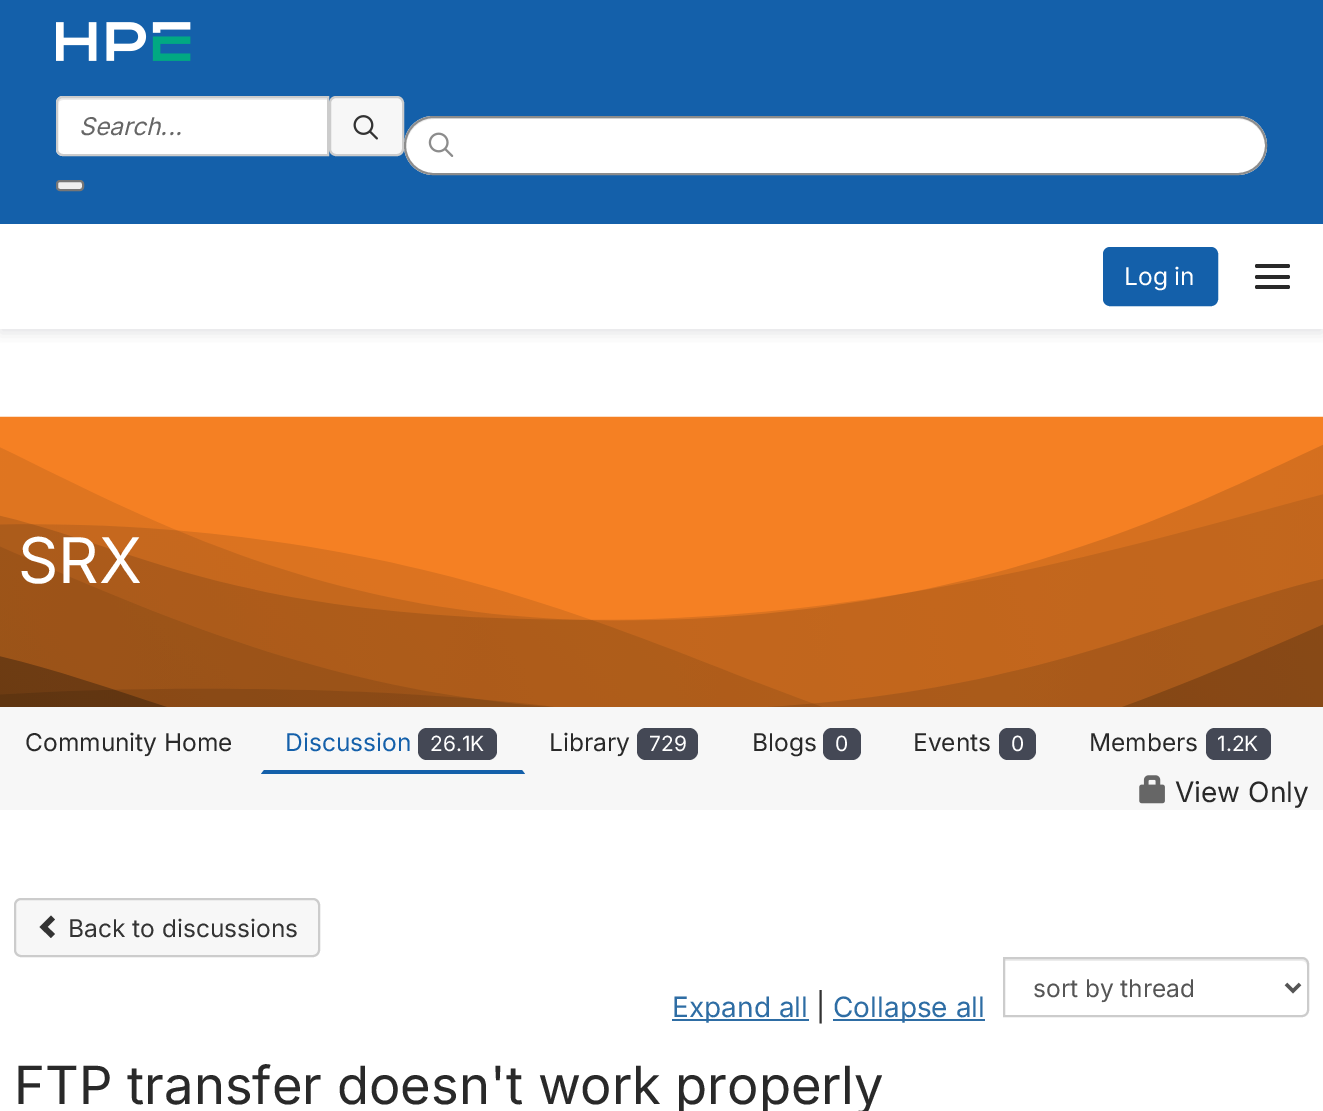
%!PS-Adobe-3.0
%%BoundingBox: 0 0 1323 1111
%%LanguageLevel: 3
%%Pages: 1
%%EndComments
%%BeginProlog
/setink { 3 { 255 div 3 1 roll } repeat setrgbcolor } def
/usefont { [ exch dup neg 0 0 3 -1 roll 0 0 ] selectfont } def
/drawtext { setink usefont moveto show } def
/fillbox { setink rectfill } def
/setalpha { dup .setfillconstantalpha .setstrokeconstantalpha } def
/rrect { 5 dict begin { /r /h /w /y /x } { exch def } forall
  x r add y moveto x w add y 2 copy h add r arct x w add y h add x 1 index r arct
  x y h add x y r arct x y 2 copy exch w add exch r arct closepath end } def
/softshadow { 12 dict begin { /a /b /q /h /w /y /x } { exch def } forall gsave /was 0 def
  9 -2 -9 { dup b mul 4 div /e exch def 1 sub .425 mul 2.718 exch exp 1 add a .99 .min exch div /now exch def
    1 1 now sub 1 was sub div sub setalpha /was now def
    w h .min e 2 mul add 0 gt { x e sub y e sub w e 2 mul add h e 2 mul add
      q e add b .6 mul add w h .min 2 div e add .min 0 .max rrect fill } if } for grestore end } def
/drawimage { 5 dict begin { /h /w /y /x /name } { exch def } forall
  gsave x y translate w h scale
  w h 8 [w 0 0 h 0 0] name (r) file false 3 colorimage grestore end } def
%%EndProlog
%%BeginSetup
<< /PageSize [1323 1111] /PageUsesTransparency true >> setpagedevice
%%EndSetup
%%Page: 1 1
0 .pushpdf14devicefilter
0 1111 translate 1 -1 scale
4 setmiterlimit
0 0 1323 1111 255 255 255 fillbox
gsave
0 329 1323 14 rectclip
131 135 145 setink
0 4 1323 329 0 7 0.24 softshadow
grestore
0 0 1323 224 20 96 170 fillbox
(assets/img1.rgb) 56 22 135 39 drawimage
255 255 255 setink
63 96 moveto 329 96 lineto 329 156 lineto 63 156 lineto 59 156 56 153 56 149 curveto 56 103 lineto 56 99 59 96 63 96 curveto closepath fill
236 236 236 setink
63 100 moveto 327 100 lineto 327 98 lineto 63 98 lineto 59 98 58 102 58 105 curveto 58 102 60 100 63 100 curveto closepath fill
204 204 204 setink
2 setlinewidth
63 97 moveto 328 97 lineto 328 155 lineto 63 155 lineto 59.5 155 57 152.5 57 149 curveto 57 103 lineto 57 99.5 59.5 97 63 97 curveto closepath stroke
(Search...) 79 135 /Inter-Italic 24.5 102 102 102 drawtext
247 247 247 setink
330 97 73 58 6 rrect gsave fill grestore
204 204 204 setink
stroke
(assets/img2.rgb) 353 115 25 25 drawimage
239 239 239 setink
57 181 26 9 3 rrect gsave fill grestore
118 118 118 setink
stroke
255 255 255 setink
404 116 863 59 29.5 rrect fill
236 236 236 setink
434 119 moveto 1237 119 lineto 1253 119 1264 131 1265 146 curveto 1265 145 lineto 1265 130 1252 117 1237 117 curveto 434 117 lineto 419 117 406 130 406 145 curveto 406 146 lineto 407 131 419 119 434 119 curveto closepath fill
140 140 140 setink
405 117 861 57 28.5 rrect stroke
(assets/img3.rgb) 428 132 26 25 drawimage
20 96 170 setink
1104 248 113 57 6 rrect gsave fill grestore
stroke
(Log in) 1124 285 /Inter-Regular 24.5 255 255 255 drawtext
41 41 41 setink
1255 264 35 4 2 rrect fill
1255 275 35 4 2 rrect fill
1255 285 35 4 2 rrect fill
(assets/img4.rgb) 0 416 1323 291 drawimage
(SRX) 18 583 /Inter-Regular 63 255 255 255 drawtext
0 707 1323 103 247 247 247 fillbox
(Community Home) 25 751 /Inter-Regular 24.5 41 41 41 drawtext
20 96 170 setink
525 774 moveto 261 774 lineto 264 770 lineto 522 770 lineto closepath fill
(Discussion) 285 751 /Inter-Regular 24.5 20 96 170 drawtext
68 72 85 setink
418 728 79 32 9 rrect fill
(26.1K) 430 751 /Inter-Regular 21 255 255 255 drawtext
(Library) 549 751 /Inter-Regular 24.5 41 41 41 drawtext
68 72 85 setink
637 728 61 32 9 rrect fill
(729) 649 751 /Inter-Regular 21 255 255 255 drawtext
(Blogs) 752 751 /Inter-Regular 24.5 41 41 41 drawtext
68 72 85 setink
823 728 38 32 9 rrect fill
(0) 835 751 /Inter-Regular 21 255 255 255 drawtext
(Events) 913 751 /Inter-Regular 24.5 41 41 41 drawtext
68 72 85 setink
999 728 37 32 9 rrect fill
(0) 1011 751 /Inter-Regular 21 255 255 255 drawtext
(Members) 1089 751 /Inter-Regular 24.5 41 41 41 drawtext
68 72 85 setink
1206 728 65 32 9 rrect fill
(1.2K) 1217 751 /Inter-Regular 21 255 255 255 drawtext
(assets/img5.rgb) 1139 775 26 29 drawimage
(View Only) 1175 802 /Inter-Regular 28 41 41 41 drawtext
247 247 247 setink
15 899 304 57 6 rrect gsave fill grestore
204 204 204 setink
stroke
51 51 51 setink
55 919.5 moveto 47.5 927 lineto 55 934 lineto 51 938 lineto 39.5 927 lineto 51 915.5 lineto closepath fill
(Back to discussions) 68 937 /Inter-Regular 24.5 51 51 51 drawtext
672 1019 137 2 46 109 164 fillbox
(Expand all) 672 1017 /Inter-Regular 28 46 109 164 drawtext
(|) 816 1017 /Inter-Regular 28 51 51 51 drawtext
833 1019 152 2 46 109 164 fillbox
(Collapse all) 833 1017 /Inter-Regular 28 46 109 164 drawtext
236 236 236 setink
1005 959 moveto 1005 961 lineto 1302 961 lineto 1305 961 1307 963 1307 966 curveto 1307 963 1306 959 1302 959 curveto closepath fill
204 204 204 setink
1004 958 moveto 1302 958 lineto 1305.5 958 1308 960.5 1308 964 curveto 1308 1010 lineto 1308 1013.5 1305.5 1016 1302 1016 curveto 1004 1016 lineto closepath stroke
85 85 85 setink
3.5 setlinewidth
1286 984 moveto 1293 991 lineto 1300 984 lineto stroke
(sort by thread) 1033 997 /Inter-Regular 24.5 85 85 85 drawtext
(FTP transfer doesn't work properly) 14 1104 /Inter-Regular 52.5 41 41 41 drawtext
.poppdf14devicefilter showpage
%%EOF
